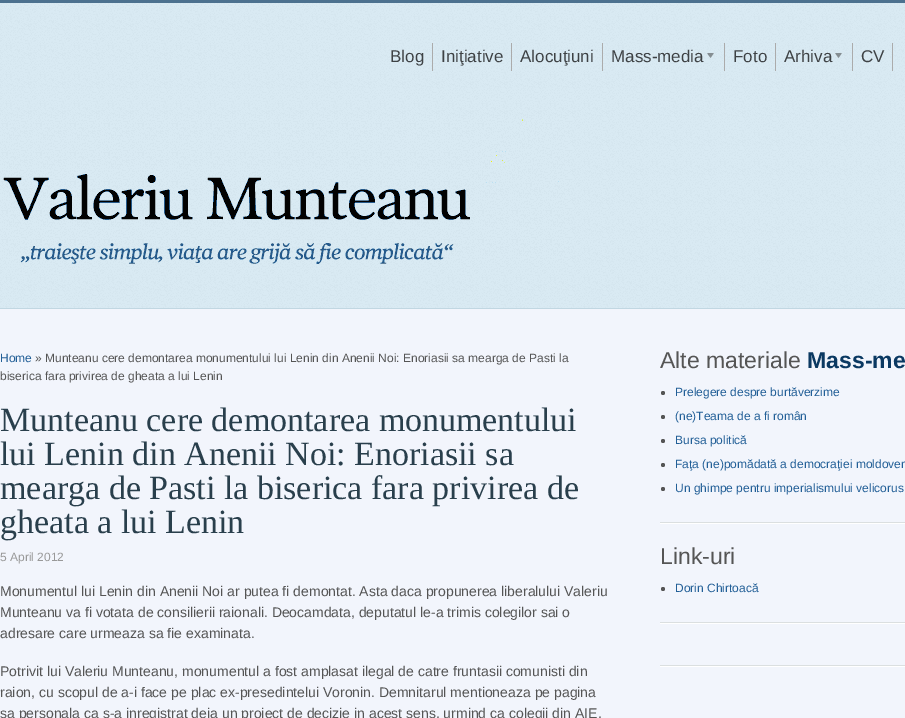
%!PS-Adobe-3.0
%%BoundingBox: 0 0 905 718
%%LanguageLevel: 3
%%Pages: 1
%%EndComments
%%BeginProlog
/setink { 3 { 255 div 3 1 roll } repeat setrgbcolor } def
/usefont { [ exch dup neg 0 0 3 -1 roll 0 0 ] selectfont } def
/drawtext { setink usefont moveto show } def
/fillbox { setink rectfill } def
/disc { newpath 0 360 arc closepath } def
/drawimage { 5 dict begin { /h /w /y /x /name } { exch def } forall
  gsave x y translate w h scale
  w h 8 [w 0 0 h 0 0] name (r) file false 3 colorimage grestore end } def
%%EndProlog
%%BeginSetup
<< /PageSize [905 718] >> setpagedevice
%%EndSetup
%%Page: 1 1
0 718 translate 1 -1 scale
4 setmiterlimit
0 0 905 718 242 245 252 fillbox
0 3 905 305 208 229 240 fillbox
(assets/img1.rgb) 0 3 905 305 drawimage
0 0 905 3 76 113 143 fillbox
0 308 905 1 193 215 226 fillbox
432 43 1 28 171 171 171 fillbox
(Blog) 390 62 /LiberationSans-Regular 17 62 66 69 drawtext
511 43 1 28 171 171 171 fillbox
(Iniţiative) 441 62 /LiberationSans-Regular 17 62 66 69 drawtext
602 43 1 28 171 171 171 fillbox
(Alocuţiuni) 520 62 /LiberationSans-Regular 17 62 66 69 drawtext
724 43 1 28 171 171 171 fillbox
(Mass-media) 611 62 /LiberationSans-Regular 17 62 66 69 drawtext
(assets/img2.rgb) 707 53 7 5 drawimage
775 43 1 28 171 171 171 fillbox
(Foto) 733 62 /LiberationSans-Regular 17 62 66 69 drawtext
852 43 1 28 171 171 171 fillbox
(Arhiva) 784 62 /LiberationSans-Regular 17 62 66 69 drawtext
(assets/img3.rgb) 835 53 7 5 drawimage
892 43 1 28 171 171 171 fillbox
(CV) 861 62 /LiberationSans-Regular 17 62 66 69 drawtext
(assets/img4.rgb) 0 116 570 148 drawimage
(Home) 0 362 /LiberationSans-Regular 12 34 95 151 drawtext
(» Munteanu cere demontarea monumentului lui Lenin din Anenii Noi: Enoriasii sa mearga de Pasti la) 35 362 /LiberationSans-Regular 12 85 85 85 drawtext
(biserica fara privirea de gheata a lui Lenin) 0 380 /LiberationSans-Regular 12 85 85 85 drawtext
(Munteanu cere demontarea monumentului) 0 431 /LiberationSerif-Regular 34 41 63 76 drawtext
(lui Lenin din Anenii Noi: Enoriasii sa) 0 465 /LiberationSerif-Regular 34 41 63 76 drawtext
(mearga de Pasti la biserica fara privirea de) 0 499 /LiberationSerif-Regular 34 41 63 76 drawtext
(gheata a lui Lenin) 0 533 /LiberationSerif-Regular 34 41 63 76 drawtext
(5 April 2012) 0 561 /LiberationSans-Regular 12 153 153 153 drawtext
(Monumentul lui Lenin din Anenii Noi ar putea fi demontat. Asta daca propunerea liberalului Valeriu) 0 596 /LiberationSans-Regular 14 85 85 85 drawtext
(Munteanu va fi votata de consilierii raionali. Deocamdata, deputatul le-a trimis colegilor sai o) 0 617 /LiberationSans-Regular 14 85 85 85 drawtext
(adresare care urmeaza sa fie examinata.) 0 638 /LiberationSans-Regular 14 85 85 85 drawtext
(Potrivit lui Valeriu Munteanu, monumentul a fost amplasat ilegal de catre fruntasii comunisti din) 0 676 /LiberationSans-Regular 14 85 85 85 drawtext
(raion, cu scopul de a-i face pe plac ex-presedintelui Voronin. Demnitarul mentioneaza pe pagina) 0 697 /LiberationSans-Regular 14 85 85 85 drawtext
(sa personala ca s-a inregistrat deja un proiect de decizie in acest sens, urmind ca colegii din AIE,) 0 718 /LiberationSans-Regular 14 85 85 85 drawtext
(assets/img5.rgb) 660 522 245 2 drawimage
(Alte materiale) 660 368 /LiberationSans-Regular 23 85 85 85 drawtext
(Mass-me) 807 368 /LiberationSans-Bold 23 11 57 98 drawtext
85 85 85 setink
663 393 2 disc fill
(Prelegere despre burtăverzime) 675 396 /LiberationSans-Regular 12 34 95 151 drawtext
85 85 85 setink
663 417 2 disc fill
(\(ne\)Teama de a fi român) 675 420 /LiberationSans-Regular 12 34 95 151 drawtext
85 85 85 setink
663 441 2 disc fill
(Bursa politică) 675 444 /LiberationSans-Regular 12 34 95 151 drawtext
85 85 85 setink
663 465 2 disc fill
(Faţa \(ne\)pomădată a democraţiei moldoven) 675 468 /LiberationSans-Regular 12 34 95 151 drawtext
85 85 85 setink
663 489 2 disc fill
(Un ghimpe pentru imperialismului velicorus) 675 492 /LiberationSans-Regular 12 34 95 151 drawtext
(assets/img5.rgb) 660 622 245 2 drawimage
(Link-uri) 660 564 /LiberationSans-Regular 23 85 85 85 drawtext
663 589 2 disc fill
(Dorin Chirtoacă) 675 592 /LiberationSans-Regular 12 34 95 151 drawtext
(assets/img5.rgb) 660 665 245 2 drawimage
showpage
%%EOF
